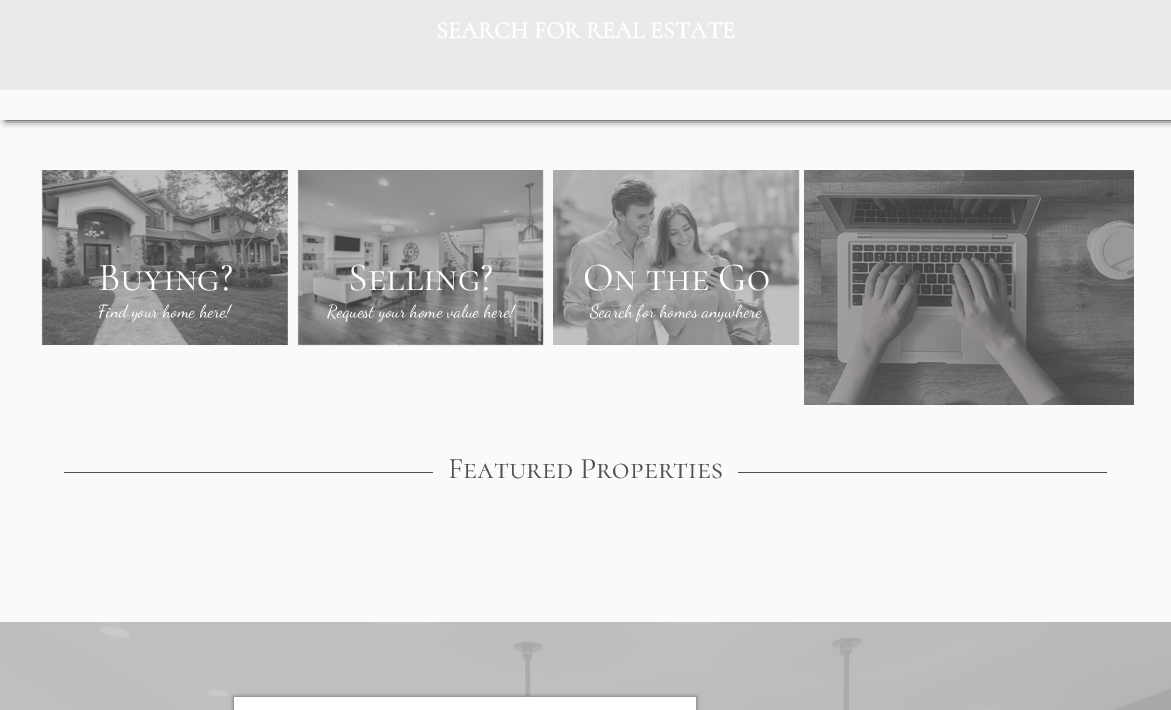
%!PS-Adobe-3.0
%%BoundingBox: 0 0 1171 710
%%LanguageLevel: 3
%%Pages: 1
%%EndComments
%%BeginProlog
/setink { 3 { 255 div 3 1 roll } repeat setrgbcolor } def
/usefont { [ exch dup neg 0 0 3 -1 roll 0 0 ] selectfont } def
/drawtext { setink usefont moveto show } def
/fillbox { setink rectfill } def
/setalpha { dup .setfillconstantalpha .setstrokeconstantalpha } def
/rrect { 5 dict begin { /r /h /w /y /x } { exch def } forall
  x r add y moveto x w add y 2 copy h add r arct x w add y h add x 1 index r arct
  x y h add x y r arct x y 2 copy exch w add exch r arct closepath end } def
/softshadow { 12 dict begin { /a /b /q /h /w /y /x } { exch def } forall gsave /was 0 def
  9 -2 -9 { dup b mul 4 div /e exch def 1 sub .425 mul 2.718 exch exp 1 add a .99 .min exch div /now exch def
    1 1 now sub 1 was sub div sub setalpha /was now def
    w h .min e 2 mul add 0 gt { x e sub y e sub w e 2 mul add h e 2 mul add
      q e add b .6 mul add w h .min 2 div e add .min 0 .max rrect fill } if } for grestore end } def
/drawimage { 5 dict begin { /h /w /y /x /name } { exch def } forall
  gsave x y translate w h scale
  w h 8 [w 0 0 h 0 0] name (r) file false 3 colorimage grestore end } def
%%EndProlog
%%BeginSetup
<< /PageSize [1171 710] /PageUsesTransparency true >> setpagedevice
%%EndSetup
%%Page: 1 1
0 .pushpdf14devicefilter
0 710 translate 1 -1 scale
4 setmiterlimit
0 0 1171 710 250 250 250 fillbox
0 0 1171 90 234 234 234 fillbox
gsave
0 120 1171 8 rectclip
0 0 0 setink
6 0 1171 120 0 4 1 softshadow
grestore
(SEARCH FOR REAL ESTATE) 436 38 /CormorantSC-Bold 24 255 255 255 drawtext
(assets/img1.rgb) 41 170 247 175 drawimage
(Buying?) 98 290 /CormorantSC-Regular 40 255 255 255 drawtext
(Find your home here!) 98 317 /DancingScript-Regular 17.5 255 255 255 drawtext
(assets/img2.rgb) 297 170 247 176 drawimage
(Selling?) 348 290 /CormorantSC-Regular 40 255 255 255 drawtext
(Request your home value here!) 327 317 /DancingScript-Regular 17.5 255 255 255 drawtext
(assets/img3.rgb) 553 170 247 175 drawimage
(On the Go) 583 290 /CormorantSC-Regular 40 255 255 255 drawtext
(Search for homes anywhere) 590 317 /DancingScript-Regular 17.5 255 255 255 drawtext
(assets/img4.rgb) 804 170 330 235 drawimage
64 472 369 1 80 80 80 fillbox
(Featured Properties) 448 478 /CormorantSC-Regular 30 80 80 80 drawtext
738 472 369 1 80 80 80 fillbox
(assets/img5.rgb) 0 622 1171 88 drawimage
96 96 96 setink
234 697 462 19 0 2 1 softshadow
234 697 462 13 255 255 255 fillbox
.poppdf14devicefilter showpage
%%EOF
